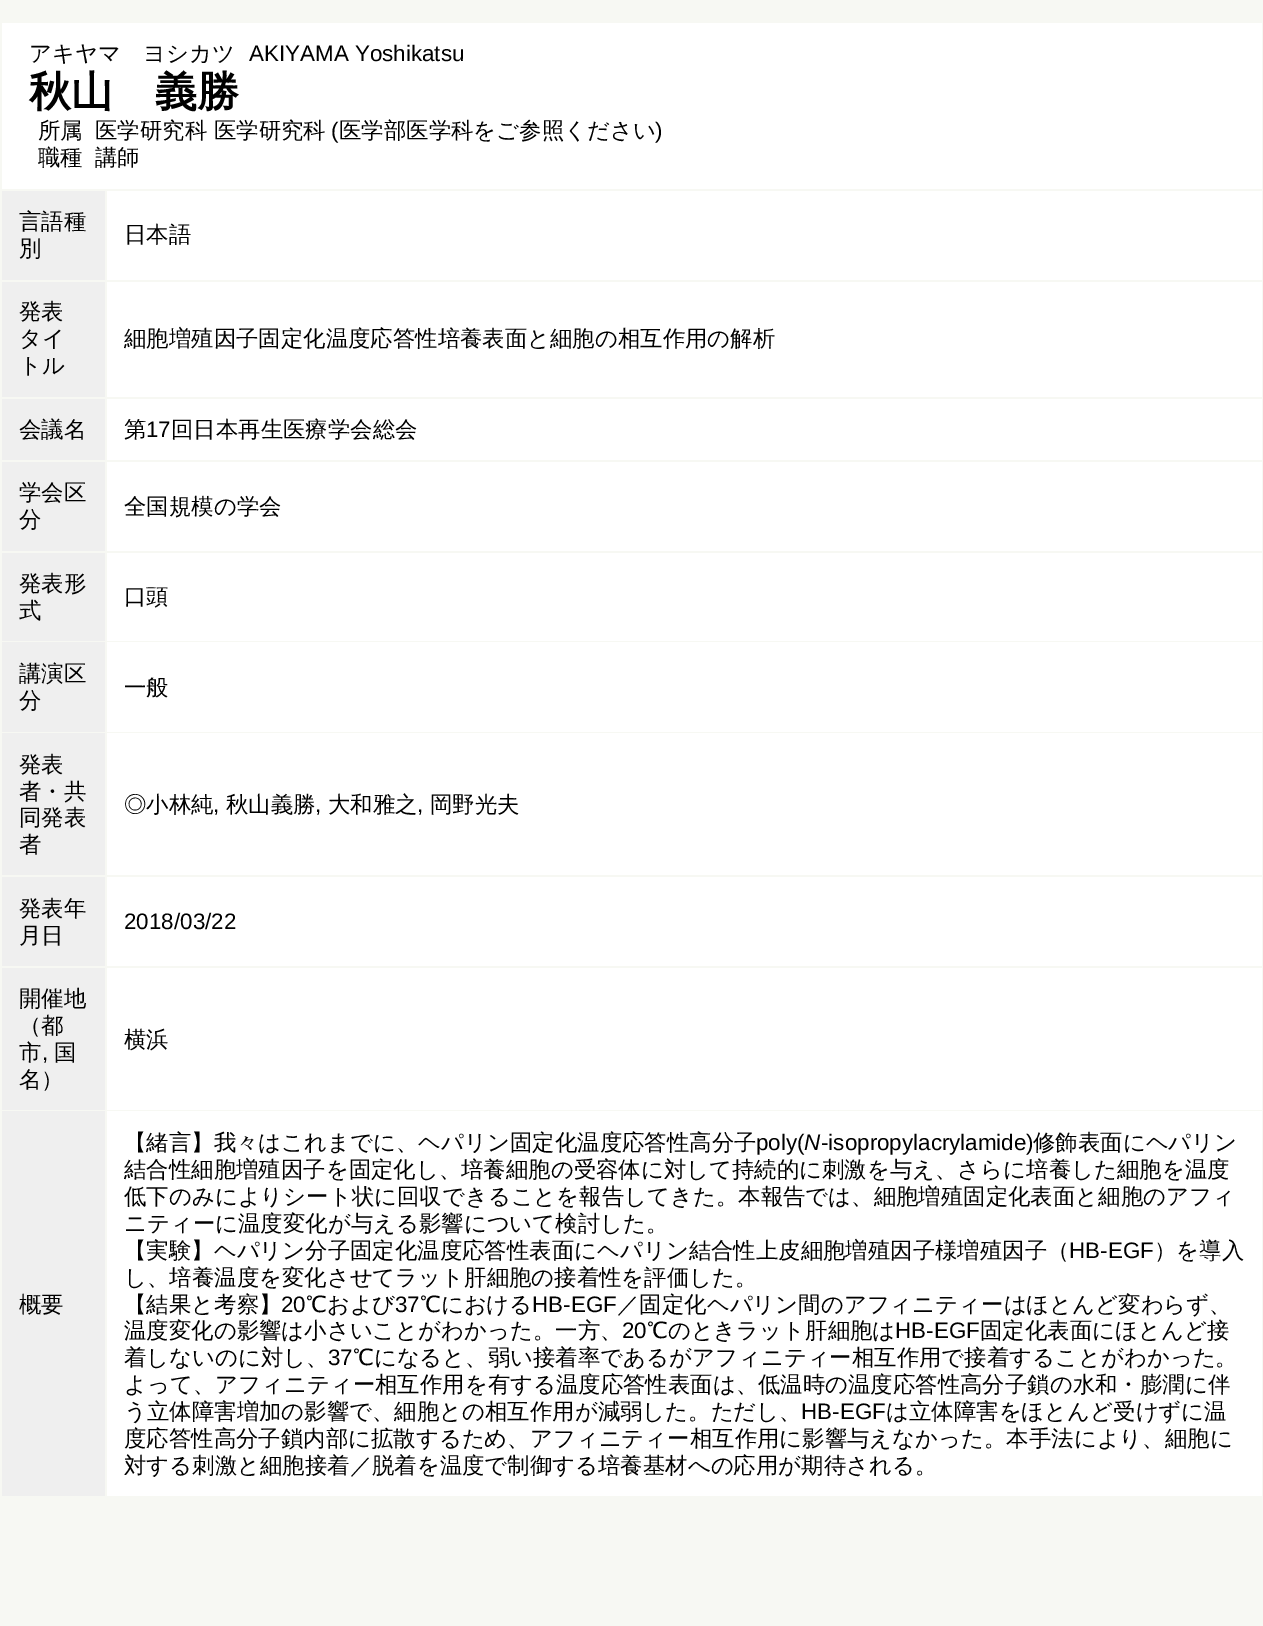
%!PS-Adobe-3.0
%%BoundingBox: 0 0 1263 1626
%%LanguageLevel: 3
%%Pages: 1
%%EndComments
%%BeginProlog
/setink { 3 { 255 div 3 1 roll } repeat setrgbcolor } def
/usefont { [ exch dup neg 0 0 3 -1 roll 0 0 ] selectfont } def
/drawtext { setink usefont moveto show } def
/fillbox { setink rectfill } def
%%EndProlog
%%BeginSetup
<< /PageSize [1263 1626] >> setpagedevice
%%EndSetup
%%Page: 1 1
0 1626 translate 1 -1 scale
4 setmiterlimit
0 0 1263 1626 247 248 243 fillbox
2 23 1260 166 255 255 255 fillbox
(アキヤマ　ヨシカツ) 29 61 /WenQuanYiZenHei-Medium 22.4 0 0 0 drawtext
(AKIYAMA Yoshikatsu) 249 61 /LiberationSans-Regular 22.4 0 0 0 drawtext
(秋山　義勝) 29 106 /WenQuanYiZenHei-Bold 42 0 0 0 drawtext
(所属) 38 138 /WenQuanYiZenHei-Medium 22.4 0 0 0 drawtext
(医学研究科 医学研究科) 95 138 /WenQuanYiZenHei-Medium 22.4 0 0 0 drawtext
(\() 331 138 /LiberationSans-Regular 22.4 0 0 0 drawtext
(医学部医学科をご参照ください) 339 138 /WenQuanYiZenHei-Medium 22.4 0 0 0 drawtext
(\)) 655 138 /LiberationSans-Regular 22.4 0 0 0 drawtext
(職種) 38 165 /WenQuanYiZenHei-Medium 22.4 0 0 0 drawtext
(講師) 95 165 /WenQuanYiZenHei-Medium 22.4 0 0 0 drawtext
2 191 103 89 239 239 239 fillbox
(言語種) 19 229 /WenQuanYiZenHei-Medium 22.4 0 0 0 drawtext
(別) 19 256 /WenQuanYiZenHei-Medium 22.4 0 0 0 drawtext
107 191 1155 89 255 255 255 fillbox
(日本語) 124 242 /WenQuanYiZenHei-Medium 22.4 0 0 0 drawtext
2 282 103 115 239 239 239 fillbox
(発表) 19 319 /WenQuanYiZenHei-Medium 22.4 0 0 0 drawtext
(タイ) 19 346 /WenQuanYiZenHei-Medium 22.4 0 0 0 drawtext
(トル) 19 373 /WenQuanYiZenHei-Medium 22.4 0 0 0 drawtext
107 282 1155 115 255 255 255 fillbox
(細胞増殖因子固定化温度応答性培養表面と細胞の相互作用の解析) 124 346 /WenQuanYiZenHei-Medium 22.4 0 0 0 drawtext
2 399 103 61 239 239 239 fillbox
(会議名) 19 437 /WenQuanYiZenHei-Medium 22.4 0 0 0 drawtext
107 399 1155 61 255 255 255 fillbox
(第) 124 437 /WenQuanYiZenHei-Medium 22.4 0 0 0 drawtext
(17) 146 437 /LiberationSans-Regular 22.4 0 0 0 drawtext
(回日本再生医療学会総会) 171 437 /WenQuanYiZenHei-Medium 22.4 0 0 0 drawtext
2 462 103 89 239 239 239 fillbox
(学会区) 19 500 /WenQuanYiZenHei-Medium 22.4 0 0 0 drawtext
(分) 19 527 /WenQuanYiZenHei-Medium 22.4 0 0 0 drawtext
107 462 1155 89 255 255 255 fillbox
(全国規模の学会) 124 514 /WenQuanYiZenHei-Medium 22.4 0 0 0 drawtext
2 553 103 88 239 239 239 fillbox
(発表形) 19 591 /WenQuanYiZenHei-Medium 22.4 0 0 0 drawtext
(式) 19 618 /WenQuanYiZenHei-Medium 22.4 0 0 0 drawtext
107 553 1155 88 255 255 255 fillbox
(口頭) 124 604 /WenQuanYiZenHei-Medium 22.4 0 0 0 drawtext
2 642 103 90 239 239 239 fillbox
(講演区) 19 681 /WenQuanYiZenHei-Medium 22.4 0 0 0 drawtext
(分) 19 708 /WenQuanYiZenHei-Medium 22.4 0 0 0 drawtext
107 642 1155 90 255 255 255 fillbox
(一般) 124 695 /WenQuanYiZenHei-Medium 22.4 0 0 0 drawtext
2 733 103 142 239 239 239 fillbox
(発表) 19 772 /WenQuanYiZenHei-Medium 22.4 0 0 0 drawtext
(者・共) 19 799 /WenQuanYiZenHei-Medium 22.4 0 0 0 drawtext
(同発表) 19 825 /WenQuanYiZenHei-Medium 22.4 0 0 0 drawtext
(者) 19 852 /WenQuanYiZenHei-Medium 22.4 0 0 0 drawtext
107 733 1155 142 255 255 255 fillbox
(◎小林純) 124 812 /WenQuanYiZenHei-Medium 22.4 0 0 0 drawtext
(,) 213 812 /LiberationSans-Regular 22.4 0 0 0 drawtext
(秋山義勝) 226 812 /WenQuanYiZenHei-Medium 22.4 0 0 0 drawtext
(,) 315 812 /LiberationSans-Regular 22.4 0 0 0 drawtext
(大和雅之) 328 812 /WenQuanYiZenHei-Medium 22.4 0 0 0 drawtext
(,) 417 812 /LiberationSans-Regular 22.4 0 0 0 drawtext
(岡野光夫) 430 812 /WenQuanYiZenHei-Medium 22.4 0 0 0 drawtext
2 877 103 89 239 239 239 fillbox
(発表年) 19 916 /WenQuanYiZenHei-Medium 22.4 0 0 0 drawtext
(月日) 19 943 /WenQuanYiZenHei-Medium 22.4 0 0 0 drawtext
107 877 1155 89 255 255 255 fillbox
(2018/03/22) 124 929 /LiberationSans-Regular 22.4 0 0 0 drawtext
2 968 103 142 239 239 239 fillbox
(開催地) 19 1006 /WenQuanYiZenHei-Medium 22.4 0 0 0 drawtext
(（都) 19 1033 /WenQuanYiZenHei-Medium 22.4 0 0 0 drawtext
(市) 19 1060 /WenQuanYiZenHei-Medium 22.4 0 0 0 drawtext
(,) 42 1060 /LiberationSans-Regular 22.4 0 0 0 drawtext
(国) 54 1060 /WenQuanYiZenHei-Medium 22.4 0 0 0 drawtext
(名）) 19 1087 /WenQuanYiZenHei-Medium 22.4 0 0 0 drawtext
107 968 1155 142 255 255 255 fillbox
(横浜) 124 1047 /WenQuanYiZenHei-Medium 22.4 0 0 0 drawtext
2 1111 103 385 239 239 239 fillbox
(概要) 19 1312 /WenQuanYiZenHei-Medium 22.4 0 0 0 drawtext
107 1111 1155 385 255 255 255 fillbox
(【緒⾔】我々はこれまでに、ヘパリン固定化温度応答性⾼分⼦) 124 1150 /WenQuanYiZenHei-Medium 22.4 0 0 0 drawtext
(poly\() 756 1150 /LiberationSans-Regular 22.4 0 0 0 drawtext
(N) 804 1150 /LiberationSans-Italic 22.4 0 0 0 drawtext
(-isopropylacrylamide\)) 821 1150 /LiberationSans-Regular 22.4 0 0 0 drawtext
(修飾表⾯にヘパリン) 1033 1150 /WenQuanYiZenHei-Medium 22.4 0 0 0 drawtext
(結合性細胞増殖因⼦を固定化し、培養細胞の受容体に対して持続的に刺激を与え、さらに培養した細胞を温度) 124 1177 /WenQuanYiZenHei-Medium 22.4 0 0 0 drawtext
(低下のみによりシート状に回収できることを報告してきた。本報告では、細胞増殖固定化表⾯と細胞のアフィ) 124 1204 /WenQuanYiZenHei-Medium 22.4 0 0 0 drawtext
(ニティーに温度変化が与える影響について検討した。) 124 1231 /WenQuanYiZenHei-Medium 22.4 0 0 0 drawtext
(【実験】ヘパリン分⼦固定化温度応答性表⾯にヘパリン結合性上⽪細胞増殖因⼦様増殖因⼦（) 124 1258 /WenQuanYiZenHei-Medium 22.4 0 0 0 drawtext
(HB-EGF) 1069 1258 /LiberationSans-Regular 22.4 0 0 0 drawtext
(）を導⼊) 1154 1258 /WenQuanYiZenHei-Medium 22.4 0 0 0 drawtext
(し、培養温度を変化させてラット肝細胞の接着性を評価した。) 124 1285 /WenQuanYiZenHei-Medium 22.4 0 0 0 drawtext
(【結果と考察】) 124 1312 /WenQuanYiZenHei-Medium 22.4 0 0 0 drawtext
(20) 281 1312 /LiberationSans-Regular 22.4 0 0 0 drawtext
(℃および) 306 1312 /WenQuanYiZenHei-Medium 22.4 0 0 0 drawtext
(37) 395 1312 /LiberationSans-Regular 22.4 0 0 0 drawtext
(℃における) 420 1312 /WenQuanYiZenHei-Medium 22.4 0 0 0 drawtext
(HB-EGF) 532 1312 /LiberationSans-Regular 22.4 0 0 0 drawtext
(／固定化ヘパリン間のアフィニティーはほとんど変わらず、) 617 1312 /WenQuanYiZenHei-Medium 22.4 0 0 0 drawtext
(温度変化の影響は⼩さいことがわかった。⼀⽅、) 124 1338 /WenQuanYiZenHei-Medium 22.4 0 0 0 drawtext
(20) 622 1338 /LiberationSans-Regular 22.4 0 0 0 drawtext
(℃のときラット肝細胞は) 647 1338 /WenQuanYiZenHei-Medium 22.4 0 0 0 drawtext
(HB-EGF) 895 1338 /LiberationSans-Regular 22.4 0 0 0 drawtext
(固定化表⾯にほとんど接) 980 1338 /WenQuanYiZenHei-Medium 22.4 0 0 0 drawtext
(着しないのに対し、) 124 1365 /WenQuanYiZenHei-Medium 22.4 0 0 0 drawtext
(37) 328 1365 /LiberationSans-Regular 22.4 0 0 0 drawtext
(℃になると、弱い接着率であるがアフィニティー相互作⽤で接着することがわかった。) 353 1365 /WenQuanYiZenHei-Medium 22.4 0 0 0 drawtext
(よって、アフィニティー相互作⽤を有する温度応答性表⾯は、低温時の温度応答性⾼分⼦鎖の⽔和・膨潤に伴) 124 1392 /WenQuanYiZenHei-Medium 22.4 0 0 0 drawtext
(う⽴体障害増加の影響で、細胞との相互作⽤が減弱した。ただし、) 124 1419 /WenQuanYiZenHei-Medium 22.4 0 0 0 drawtext
(HB-EGF) 801 1419 /LiberationSans-Regular 22.4 0 0 0 drawtext
(は⽴体障害をほとんど受けずに温) 886 1419 /WenQuanYiZenHei-Medium 22.4 0 0 0 drawtext
(度応答性⾼分⼦鎖内部に拡散するため、アフィニティー相互作⽤に影響与えなかった。本⼿法により、細胞に) 124 1446 /WenQuanYiZenHei-Medium 22.4 0 0 0 drawtext
(対する刺激と細胞接着／脱着を温度で制御する培養基材への応⽤が期待される。) 124 1473 /WenQuanYiZenHei-Medium 22.4 0 0 0 drawtext
showpage
%%EOF
